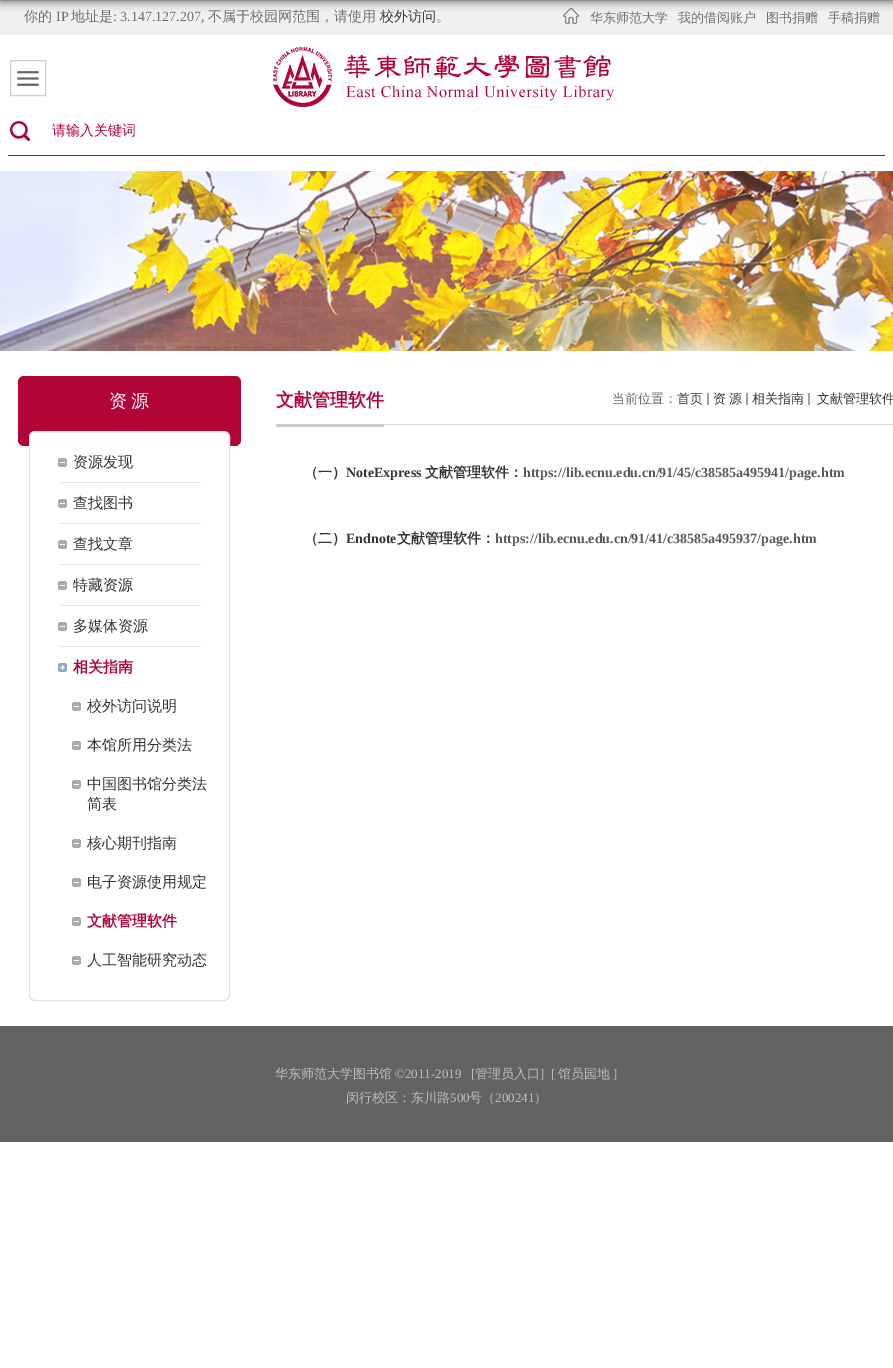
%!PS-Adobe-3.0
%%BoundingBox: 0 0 893 1368
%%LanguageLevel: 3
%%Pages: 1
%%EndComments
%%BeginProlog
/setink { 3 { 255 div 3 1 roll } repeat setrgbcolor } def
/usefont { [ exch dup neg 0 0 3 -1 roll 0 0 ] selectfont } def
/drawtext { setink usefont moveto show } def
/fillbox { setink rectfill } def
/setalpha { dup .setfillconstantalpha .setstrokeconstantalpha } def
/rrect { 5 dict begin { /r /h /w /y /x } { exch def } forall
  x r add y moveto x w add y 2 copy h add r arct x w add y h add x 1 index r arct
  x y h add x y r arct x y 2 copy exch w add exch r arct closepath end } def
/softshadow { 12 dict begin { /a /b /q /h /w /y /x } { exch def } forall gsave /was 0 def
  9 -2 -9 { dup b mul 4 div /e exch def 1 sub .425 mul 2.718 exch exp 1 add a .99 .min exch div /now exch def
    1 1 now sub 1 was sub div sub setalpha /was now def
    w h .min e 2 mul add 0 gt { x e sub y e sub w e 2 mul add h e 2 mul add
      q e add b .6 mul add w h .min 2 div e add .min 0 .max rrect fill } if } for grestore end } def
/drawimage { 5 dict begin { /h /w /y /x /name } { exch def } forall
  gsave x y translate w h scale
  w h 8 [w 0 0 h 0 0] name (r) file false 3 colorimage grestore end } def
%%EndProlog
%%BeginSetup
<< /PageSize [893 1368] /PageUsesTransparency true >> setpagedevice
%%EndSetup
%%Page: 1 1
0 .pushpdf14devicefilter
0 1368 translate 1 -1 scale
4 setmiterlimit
0 0 893 1368 255 255 255 fillbox
0 0 893 35 240 240 240 fillbox
(assets/img1.rgb) 563 8 16 16 drawimage
0 0 0 setink
0 -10 893 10 0 5 0.8 softshadow
(你的) 24 21 /WenQuanYiZenHei-Medium 14 112 112 112 drawtext
(IP) 56 21 /LiberationSerif-Regular 14 112 112 112 drawtext
(地址是) 71 21 /WenQuanYiZenHei-Medium 14 112 112 112 drawtext
(: 3.147.127.207,) 113 21 /LiberationSerif-Regular 14 112 112 112 drawtext
(不属于校园网范围，请使用) 208 21 /WenQuanYiZenHei-Medium 14 112 112 112 drawtext
(校外访问) 380 21 /WenQuanYiZenHei-Medium 14 59 59 59 drawtext
(。) 436 21 /WenQuanYiZenHei-Medium 14 112 112 112 drawtext
(华东师范大学) 590 22 /WenQuanYiZenHei-Medium 13 112 112 112 drawtext
(我的借阅账户) 678 22 /WenQuanYiZenHei-Medium 13 112 112 112 drawtext
(图书捐赠) 766 22 /WenQuanYiZenHei-Medium 13 112 112 112 drawtext
(手稿捐赠) 828 22 /WenQuanYiZenHei-Medium 13 112 112 112 drawtext
(assets/img2.rgb) 17 71 22 15 drawimage
206 206 206 setink
10.5 60.5 35 35 rectstroke
(assets/img3.rgb) 273 47 341 60 drawimage
8 155 877 1 178 5 55 fillbox
(assets/img4.rgb) 10 121 20 20 drawimage
(请输入关键词) 52 135 /WenQuanYiZenHei-Medium 14 178 5 55 drawtext
(assets/img5.rgb) 0 171 893 180 drawimage
18 376 223 70 6 rrect fill
/WenQuanYiZenHei-Medium 18 usefont
255 255 255 setink
109 407 moveto -1 0 32 (资 源) widthshow
29.5 431.5 200 569 5.5 rrect gsave fill grestore
224 224 224 setink
stroke
(assets/img6.rgb) 58 458 9 9 drawimage
(资源发现) 73 467 /WenQuanYiZenHei-Medium 15 51 51 51 drawtext
58 482 143 1 231 231 231 fillbox
(assets/img6.rgb) 58 499 9 9 drawimage
(查找图书) 73 508 /WenQuanYiZenHei-Medium 15 51 51 51 drawtext
58 523 143 1 231 231 231 fillbox
(assets/img6.rgb) 58 540 9 9 drawimage
(查找文章) 73 549 /WenQuanYiZenHei-Medium 15 51 51 51 drawtext
58 564 143 1 231 231 231 fillbox
(assets/img6.rgb) 58 581 9 9 drawimage
(特藏资源) 73 590 /WenQuanYiZenHei-Medium 15 51 51 51 drawtext
58 605 143 1 231 231 231 fillbox
(assets/img6.rgb) 58 622 9 9 drawimage
(多媒体资源) 73 631 /WenQuanYiZenHei-Medium 15 51 51 51 drawtext
58 646 143 1 231 231 231 fillbox
(assets/img7.rgb) 58 663 9 9 drawimage
(相关指南) 73 672 /WenQuanYiZenHei-Bold 15 178 5 55 drawtext
(assets/img6.rgb) 72 702 9 9 drawimage
(校外访问说明) 87 711 /WenQuanYiZenHei-Medium 15 51 51 51 drawtext
(assets/img6.rgb) 72 741 9 9 drawimage
(本馆所用分类法) 87 750 /WenQuanYiZenHei-Medium 15 51 51 51 drawtext
(assets/img6.rgb) 72 780 9 9 drawimage
(中国图书馆分类法) 87 789 /WenQuanYiZenHei-Medium 15 51 51 51 drawtext
(简表) 87 809 /WenQuanYiZenHei-Medium 15 51 51 51 drawtext
(assets/img6.rgb) 72 839 9 9 drawimage
(核心期刊指南) 87 848 /WenQuanYiZenHei-Medium 15 51 51 51 drawtext
(assets/img6.rgb) 72 878 9 9 drawimage
(电子资源使用规定) 87 887 /WenQuanYiZenHei-Medium 15 51 51 51 drawtext
(assets/img6.rgb) 72 917 9 9 drawimage
(文献管理软件) 87 926 /WenQuanYiZenHei-Bold 15 178 5 55 drawtext
(assets/img6.rgb) 72 956 9 9 drawimage
(人工智能研究动态) 87 965 /WenQuanYiZenHei-Medium 15 51 51 51 drawtext
384 424 509 1 219 219 219 fillbox
276 424 108 3 203 203 203 fillbox
(文献管理软件) 276 406 /WenQuanYiZenHei-Bold 18 178 5 55 drawtext
(当前位置：) 612 403 /WenQuanYiZenHei-Medium 13 102 102 102 drawtext
(首页) 677 403 /WenQuanYiZenHei-Medium 13 51 51 51 drawtext
707 393 2 12 162 162 162 fillbox
51 51 51 setink
713 403 moveto -1 0 32 (资 源) widthshow
746 393 2 12 162 162 162 fillbox
(相关指南) 752 403 /WenQuanYiZenHei-Medium 13 51 51 51 drawtext
808 393 2 12 162 162 162 fillbox
(文献管理软件) 817 403 /WenQuanYiZenHei-Medium 13 51 51 51 drawtext
(（一）) 304 477 /WenQuanYiZenHei-Bold 14 51 51 51 drawtext
(NoteExpress) 346 477 /LiberationSerif-Bold 14 51 51 51 drawtext
(文献管理软件：) 425 477 /WenQuanYiZenHei-Bold 14 51 51 51 drawtext
(https://lib.ecnu.edu.cn/91/45/c38585a495941/page.htm) 523 477 /LiberationSerif-Bold 14 90 90 90 drawtext
(（二）) 304 543 /WenQuanYiZenHei-Bold 14 51 51 51 drawtext
(Endnote) 346 543 /LiberationSerif-Bold 14 51 51 51 drawtext
(文献管理软件：) 397 543 /WenQuanYiZenHei-Bold 14 51 51 51 drawtext
(https://lib.ecnu.edu.cn/91/41/c38585a495937/page.htm) 495 543 /LiberationSerif-Bold 14 90 90 90 drawtext
0 1026 893 116 99 99 99 fillbox
(华东师范大学图书馆) 275 1078 /WenQuanYiZenHei-Medium 13 189 187 187 drawtext
(©2011-2019) 395 1078 /LiberationSerif-Regular 13 189 187 187 drawtext
([) 471 1078 /LiberationSerif-Regular 13 189 187 187 drawtext
(管理员入口) 475 1078 /WenQuanYiZenHei-Medium 13 189 187 187 drawtext
(]) 540 1078 /LiberationSerif-Regular 13 189 187 187 drawtext
([) 551 1078 /LiberationSerif-Regular 13 189 187 187 drawtext
(馆员园地) 558 1078 /WenQuanYiZenHei-Medium 13 189 187 187 drawtext
(]) 613 1078 /LiberationSerif-Regular 13 189 187 187 drawtext
(闵行校区：东川路) 346 1102 /WenQuanYiZenHei-Medium 13 189 187 187 drawtext
(500) 450 1102 /LiberationSerif-Regular 13 189 187 187 drawtext
(号（) 469 1102 /WenQuanYiZenHei-Medium 13 189 187 187 drawtext
(200241) 495 1102 /LiberationSerif-Regular 13 189 187 187 drawtext
(）) 534 1102 /WenQuanYiZenHei-Medium 13 189 187 187 drawtext
.poppdf14devicefilter showpage
%%EOF
